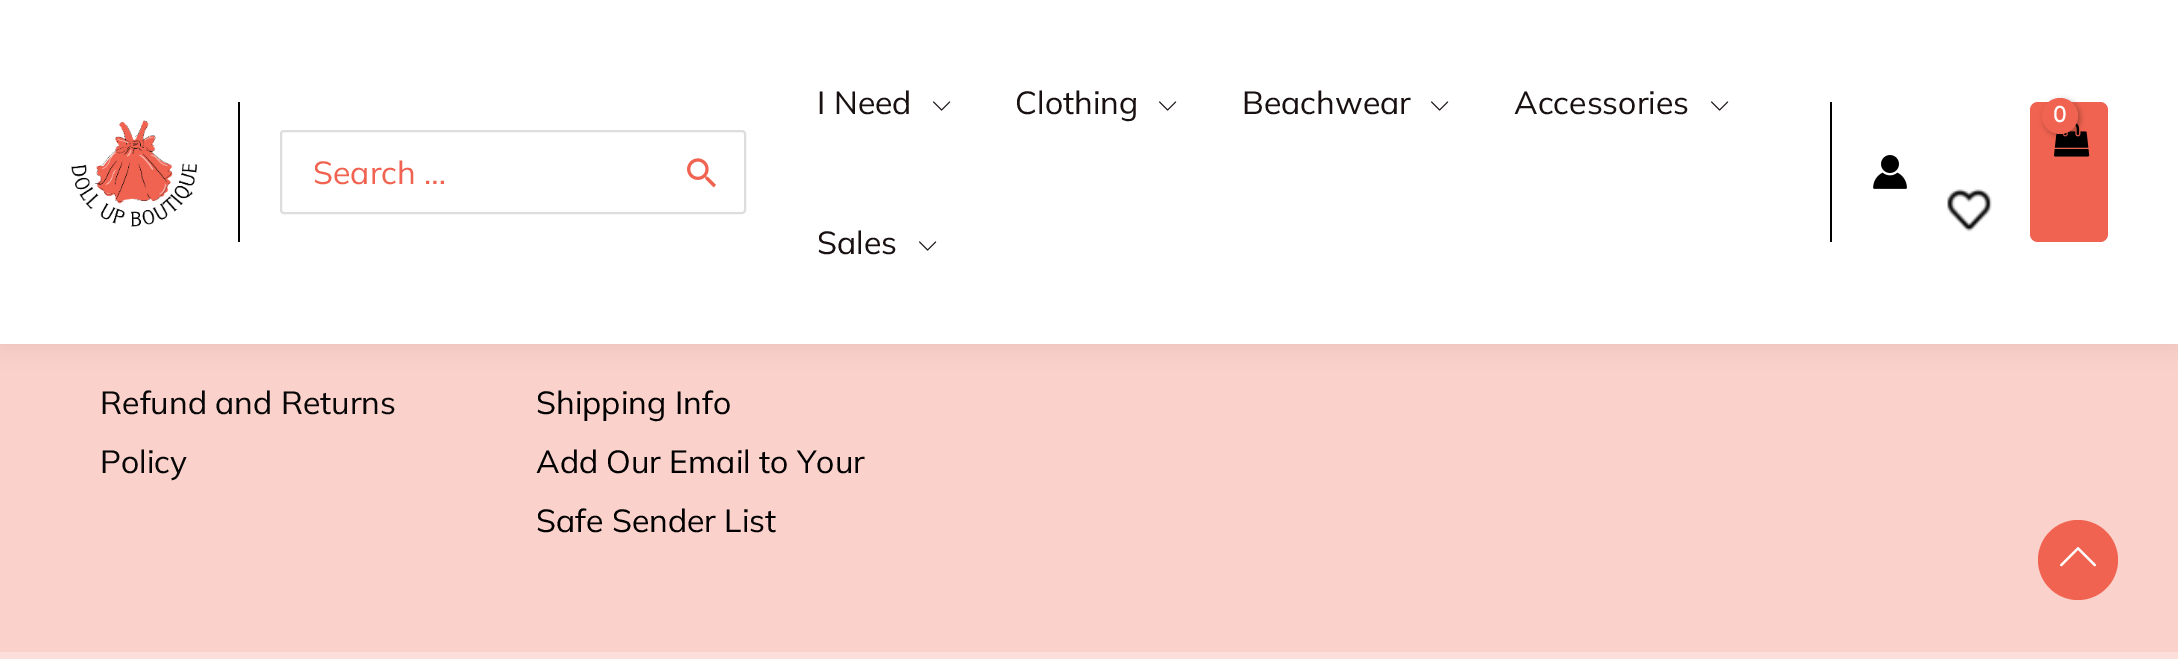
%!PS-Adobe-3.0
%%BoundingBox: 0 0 2178 659
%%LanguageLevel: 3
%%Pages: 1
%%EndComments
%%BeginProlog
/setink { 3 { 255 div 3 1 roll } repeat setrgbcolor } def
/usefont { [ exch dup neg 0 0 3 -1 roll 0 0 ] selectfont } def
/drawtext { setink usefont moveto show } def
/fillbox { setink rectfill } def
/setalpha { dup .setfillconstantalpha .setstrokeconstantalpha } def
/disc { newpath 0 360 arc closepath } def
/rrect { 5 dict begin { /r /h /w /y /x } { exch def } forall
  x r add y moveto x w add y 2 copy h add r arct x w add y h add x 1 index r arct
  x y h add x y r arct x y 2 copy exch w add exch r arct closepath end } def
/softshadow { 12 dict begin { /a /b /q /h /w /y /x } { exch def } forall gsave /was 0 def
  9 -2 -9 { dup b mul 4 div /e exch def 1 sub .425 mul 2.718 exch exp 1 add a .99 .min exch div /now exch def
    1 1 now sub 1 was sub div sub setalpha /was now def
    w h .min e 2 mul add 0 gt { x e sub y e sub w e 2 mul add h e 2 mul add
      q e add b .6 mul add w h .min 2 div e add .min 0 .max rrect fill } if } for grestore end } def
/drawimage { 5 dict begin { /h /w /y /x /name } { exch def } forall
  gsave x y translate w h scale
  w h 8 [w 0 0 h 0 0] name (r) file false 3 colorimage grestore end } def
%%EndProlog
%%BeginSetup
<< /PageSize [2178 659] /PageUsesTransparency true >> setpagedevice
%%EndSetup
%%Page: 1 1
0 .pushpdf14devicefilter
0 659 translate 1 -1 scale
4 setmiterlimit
0 0 2178 659 251 209 203 fillbox
36 50 66 setink
0 4 2178 344 0 10 0.07 softshadow
0 0 2178 344 255 255 255 fillbox
(assets/img1.rgb) 71 120 126 107 drawimage
238 102 2 140 0 0 0 fillbox
221 221 221 setink
2 setlinewidth
281 131 464 82 3 rrect stroke
(Search …) 313 184 /Mulish-ExtraLight 32 241 99 81 drawtext
(assets/img2.rgb) 687 158 29 30 drawimage
(I Need) 817 114 /Mulish-ExtraLight 32 25 17 17 drawtext
(assets/img3.rgb) 933 101 18 10 drawimage
(Clothing) 1015 114 /Mulish-ExtraLight 32 25 17 17 drawtext
(assets/img3.rgb) 1159 101 18 10 drawimage
(Beachwear) 1242 114 /Mulish-ExtraLight 32 25 17 17 drawtext
(assets/img3.rgb) 1431 101 18 10 drawimage
(Accessories) 1514 114 /Mulish-ExtraLight 32 25 17 17 drawtext
(assets/img3.rgb) 1711 101 18 10 drawimage
(Sales) 817 254 /Mulish-ExtraLight 32 25 17 17 drawtext
(assets/img3.rgb) 919 241 18 10 drawimage
1830 102 2 140 0 0 0 fillbox
241 99 81 setink
2030 102 78 140 8 rrect fill
(assets/img4.rgb) 2054 122 36 35 drawimage
0 0 0 setink
2044 100 36 36 18 3 0.3 softshadow
241 99 81 setink
2060 116 18 disc fill
/Mulish-Bold 22 usefont
255 255 255 setink
2053 122 moveto -1 0 (0) ashow
(assets/img5.rgb) 1873 155 34 34 drawimage
(assets/img6.rgb) 1947 189 45 43 drawimage
(Refund and Returns) 100 414 /Mulish-ExtraLight 32 7 7 7 drawtext
(Policy) 100 473 /Mulish-ExtraLight 32 7 7 7 drawtext
(Shipping Info) 536 414 /Mulish-ExtraLight 32 0 0 0 drawtext
(Add Our Email to Your) 536 473 /Mulish-ExtraLight 32 0 0 0 drawtext
(Safe Sender List) 536 532 /Mulish-ExtraLight 32 0 0 0 drawtext
0 652 2178 7 252 223 219 fillbox
241 99 81 setink
2078 600 moveto 2056 600 2038 582 2038 560 curveto 2038 538 2056 520 2078 520 curveto 2100 520 2118 538 2118 560 curveto 2118 582 2100 600 2078 600 curveto closepath fill
(assets/img7.rgb) 2060 547 36 20 drawimage
.poppdf14devicefilter showpage
%%EOF
